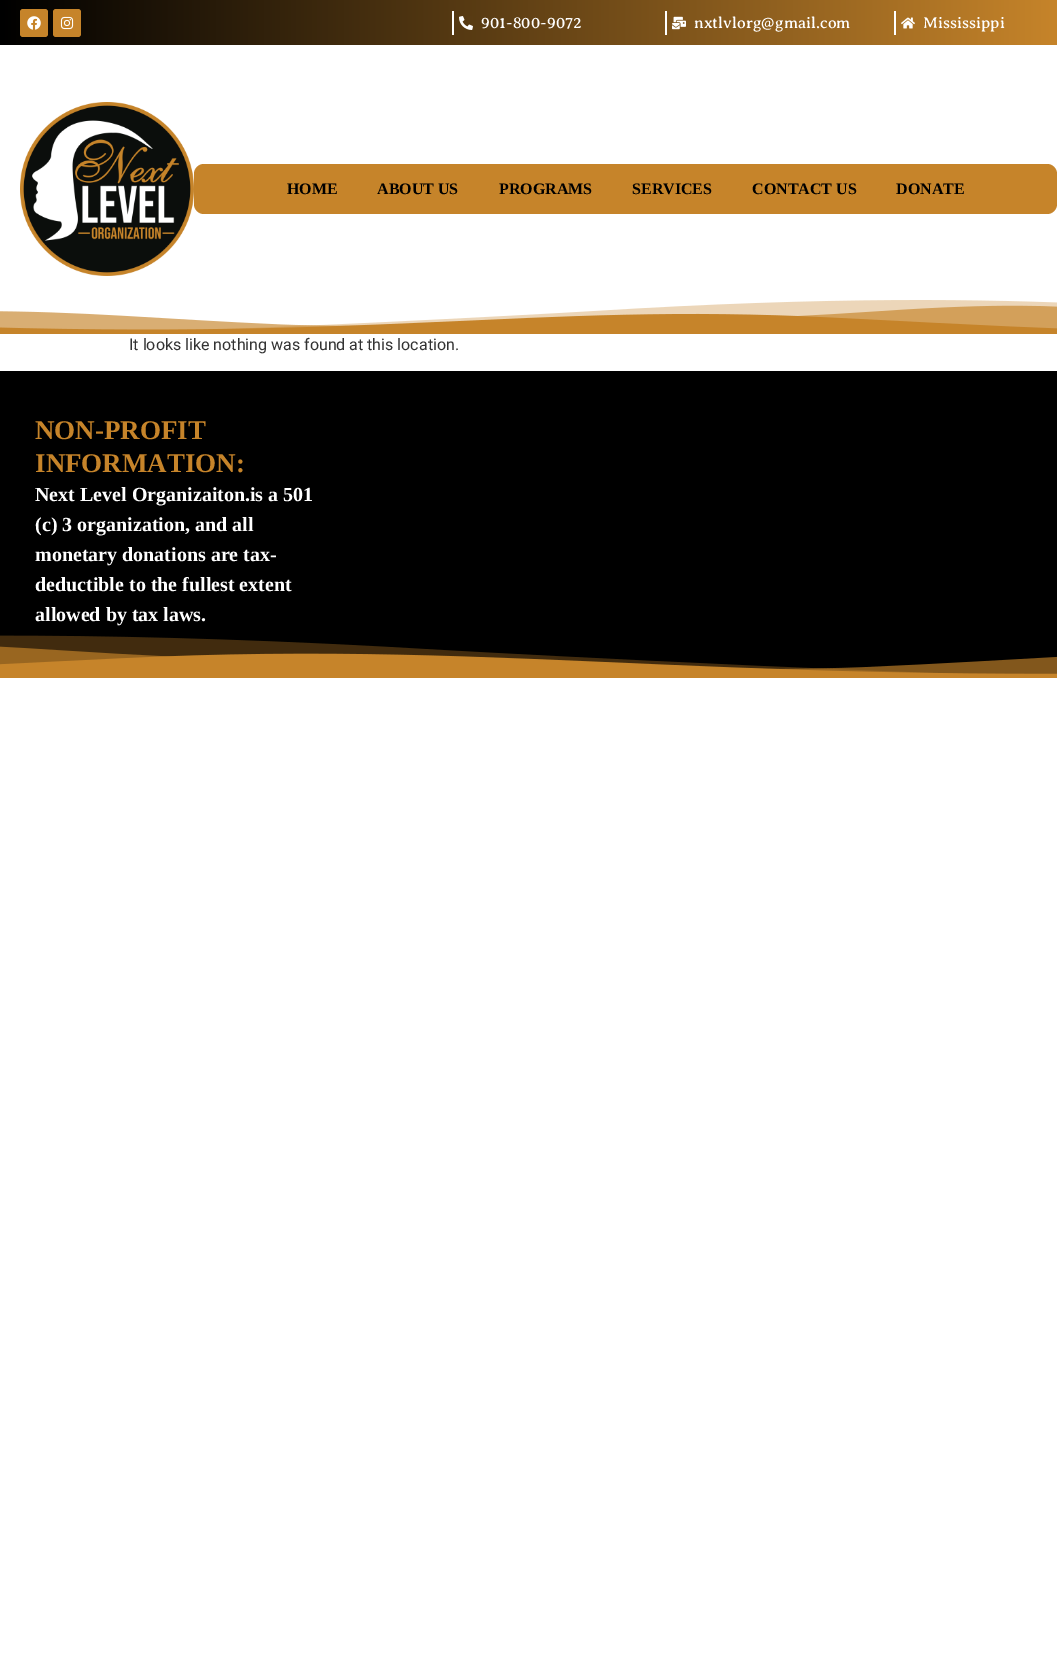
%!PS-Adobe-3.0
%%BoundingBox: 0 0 1057 1674
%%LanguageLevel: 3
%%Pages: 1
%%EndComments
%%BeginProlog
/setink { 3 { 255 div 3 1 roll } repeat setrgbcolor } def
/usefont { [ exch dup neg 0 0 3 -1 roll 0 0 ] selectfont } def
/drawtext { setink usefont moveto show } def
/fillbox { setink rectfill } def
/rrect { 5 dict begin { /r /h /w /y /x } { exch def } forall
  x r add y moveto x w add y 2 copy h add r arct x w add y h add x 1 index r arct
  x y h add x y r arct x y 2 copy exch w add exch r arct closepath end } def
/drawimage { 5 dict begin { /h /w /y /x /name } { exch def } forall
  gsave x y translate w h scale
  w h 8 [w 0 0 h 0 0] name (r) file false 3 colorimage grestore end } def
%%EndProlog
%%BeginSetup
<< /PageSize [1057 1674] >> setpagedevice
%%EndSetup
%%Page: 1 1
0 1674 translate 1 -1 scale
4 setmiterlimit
0 0 1057 1674 255 255 255 fillbox
gsave 0 0 moveto 1057 0 lineto 1057 45 lineto 0 45 lineto closepath clip newpath
<< /ShadingType 2 /ColorSpace /DeviceRGB /Coords [0 23 1057 22] /Extend [true true] /Function << /FunctionType 2 /Domain [0 1] /C0 [0 0 0] /C1 [0.776 0.518 0.165] /N 1 >> >> shfill grestore
198 132 42 setink
20 9 28 28 3 rrect fill
(assets/img1.rgb) 27 16 14 14 drawimage
53 9 28 28 3 rrect fill
(assets/img2.rgb) 60 16 14 14 drawimage
452 11 2 24 255 255 255 fillbox
(assets/img3.rgb) 459 16 14 14 drawimage
(901-800-9072) 481 28 /AveriaSerifLibre-Regular 16 255 255 255 drawtext
665 11 2 24 255 255 255 fillbox
(assets/img4.rgb) 672 16 14 14 drawimage
(nxtlvlorg@gmail.com) 694 28 /AveriaSerifLibre-Regular 16 255 255 255 drawtext
894 11 2 24 255 255 255 fillbox
(assets/img5.rgb) 901 17 14 12 drawimage
(Mississippi) 923 28 /AveriaSerifLibre-Regular 16 255 255 255 drawtext
(assets/img6.rgb) 20 102 174 174 drawimage
198 132 42 setink
194 164 863 50 10 rrect fill
(HOME) 287 194 /LiberationSerif-Bold 16 0 0 0 drawtext
(ABOUT US) 377 194 /LiberationSerif-Bold 16 0 0 0 drawtext
(PROGRAMS) 499 194 /LiberationSerif-Bold 16 0 0 0 drawtext
(SERVICES) 632 194 /LiberationSerif-Bold 16 0 0 0 drawtext
(CONTACT US) 752 194 /LiberationSerif-Bold 16 0 0 0 drawtext
(DONATE) 896 194 /LiberationSerif-Bold 16 0 0 0 drawtext
(assets/img7.rgb) 0 300 1057 34 drawimage
(It looks like nothing was found at this location.) 129 350 /Roboto-Regular 16 51 51 51 drawtext
0 371 1057 303 0 0 0 fillbox
(NON-PROFIT) 35 439 /LiberationSerif-Bold 27 198 132 42 drawtext
(INFORMATION:) 35 472 /LiberationSerif-Bold 27 198 132 42 drawtext
(Next Level Organizaiton.is a 501) 35 501 /LiberationSerif-Bold 20 255 255 255 drawtext
(\(c\) 3 organization, and all) 35 531 /LiberationSerif-Bold 20 255 255 255 drawtext
(monetary donations are tax-) 35 561 /LiberationSerif-Bold 20 255 255 255 drawtext
(deductible to the fullest extent) 35 591 /LiberationSerif-Bold 20 255 255 255 drawtext
(allowed by tax laws.) 35 621 /LiberationSerif-Bold 20 255 255 255 drawtext
(assets/img8.rgb) 0 635 1057 43 drawimage
showpage
%%EOF
